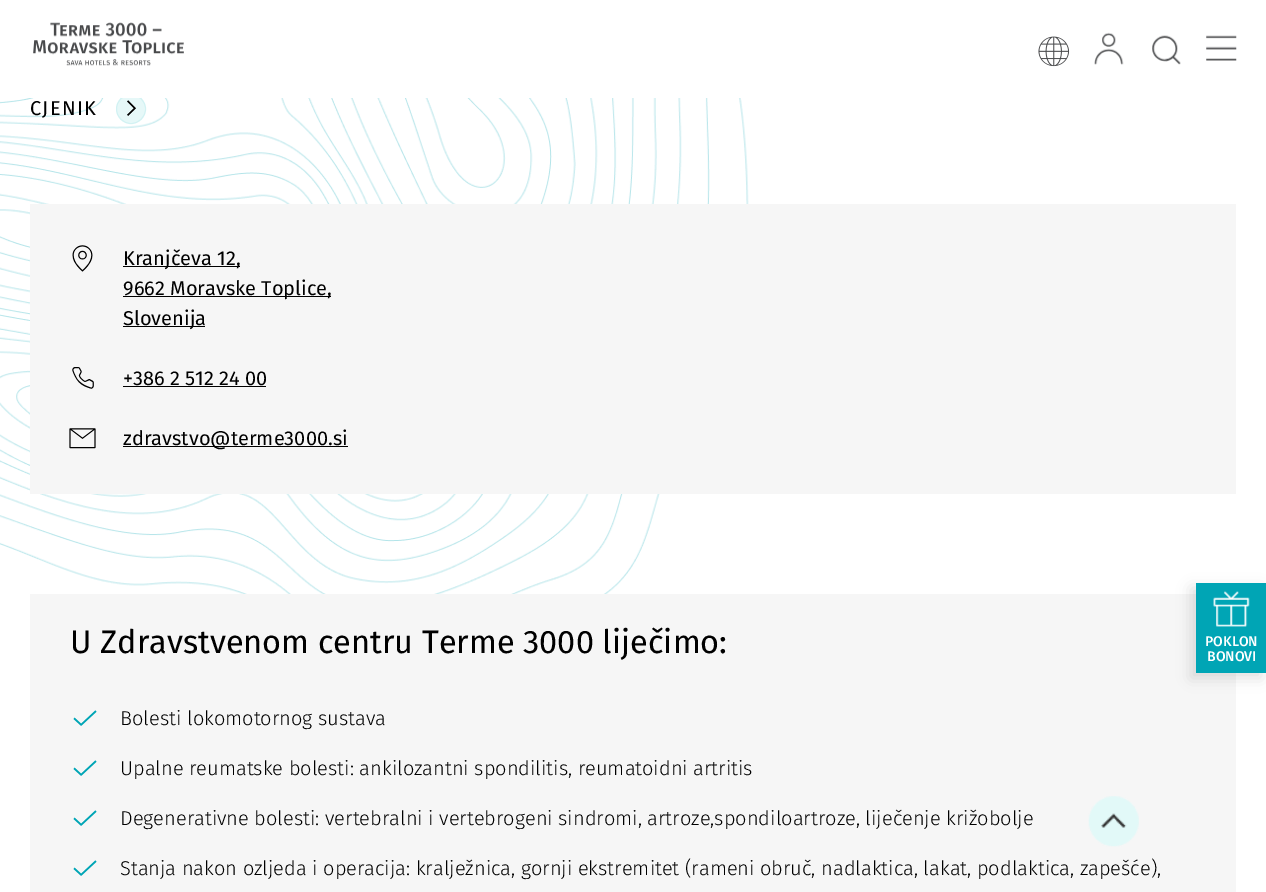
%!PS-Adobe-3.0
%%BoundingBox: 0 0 1266 892
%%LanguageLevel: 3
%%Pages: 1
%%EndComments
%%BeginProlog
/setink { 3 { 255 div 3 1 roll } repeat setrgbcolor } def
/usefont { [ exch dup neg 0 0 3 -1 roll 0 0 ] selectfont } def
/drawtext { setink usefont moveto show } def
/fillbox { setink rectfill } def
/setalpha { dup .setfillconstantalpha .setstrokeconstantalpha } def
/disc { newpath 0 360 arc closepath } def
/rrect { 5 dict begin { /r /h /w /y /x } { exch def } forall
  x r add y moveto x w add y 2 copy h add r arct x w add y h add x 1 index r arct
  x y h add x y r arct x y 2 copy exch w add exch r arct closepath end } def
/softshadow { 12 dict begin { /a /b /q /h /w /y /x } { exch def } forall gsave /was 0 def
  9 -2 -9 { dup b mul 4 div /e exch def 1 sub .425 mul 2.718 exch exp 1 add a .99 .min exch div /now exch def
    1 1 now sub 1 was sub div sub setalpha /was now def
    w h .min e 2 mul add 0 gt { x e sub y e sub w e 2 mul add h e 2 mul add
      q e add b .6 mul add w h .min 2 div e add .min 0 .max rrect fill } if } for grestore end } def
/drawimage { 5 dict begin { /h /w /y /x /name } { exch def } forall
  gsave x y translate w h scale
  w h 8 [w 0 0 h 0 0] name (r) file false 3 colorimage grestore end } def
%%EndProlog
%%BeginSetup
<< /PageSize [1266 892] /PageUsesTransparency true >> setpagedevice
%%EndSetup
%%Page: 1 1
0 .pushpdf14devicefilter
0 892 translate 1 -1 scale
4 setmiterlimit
0 0 1266 892 255 255 255 fillbox
(assets/img6.rgb) 0 98 749 496 drawimage
230 248 248 setink
131 109 15 disc fill
0.2 setalpha
132 218 222 setink
131 109 14.5 disc stroke
1 setalpha
121 94 20 4 255 255 255 fillbox
(assets/img1.rgb) 33 22 151 44 drawimage
(assets/img2.rgb) 1038 36 32 31 drawimage
(assets/img3.rgb) 1094 32 30 33 drawimage
(assets/img4.rgb) 1152 35 29 30 drawimage
(assets/img5.rgb) 1206 35 31 26 drawimage
/FiraSans-Regular 20 usefont
0 0 0 setink
30 115 moveto 1.25 0 (CJENIK) ashow
(assets/img7.rgb) 127 100 9 16 drawimage
30 204 1206 290 246 246 246 fillbox
(assets/img8.rgb) 72 245 21 27 drawimage
123 266 117 1 0 0 0 fillbox
(Kranjčeva 12,) 123 265 /FiraSans-Regular 20 0 0 0 drawtext
123 296 208 1 0 0 0 fillbox
(9662 Moravske Toplice,) 123 295 /FiraSans-Regular 20 0 0 0 drawtext
123 326 82 1 0 0 0 fillbox
(Slovenija) 123 325 /FiraSans-Regular 20 0 0 0 drawtext
(assets/img9.rgb) 72 367 22 22 drawimage
(+386 2 512 24 00) 123 385 /FiraSans-Regular 20 0 0 0 drawtext
123 386 143 1 0 0 0 fillbox
(assets/img10.rgb) 69 428 27 21 drawimage
123 446 225 1 0 0 0 fillbox
(zdravstvo@terme3000.si) 123 445 /FiraSans-Regular 20 0 0 0 drawtext
30 594 1206 298 246 246 246 fillbox
(U Zdravstvenom centru Terme 3000 liječimo:) 70 653 /FiraSans-Regular 32.5 0 0 0 drawtext
(assets/img11.rgb) 73 710 24 16 drawimage
(Bolesti lokomotornog sustava) 120 725 /FiraSans-Light 20 0 0 0 drawtext
(assets/img11.rgb) 73 760 24 16 drawimage
(Upalne reumatske bolesti: ankilozantni spondilitis, reumatoidni artritis) 120 775 /FiraSans-Light 20 0 0 0 drawtext
(assets/img11.rgb) 73 810 24 16 drawimage
(Degenerativne bolesti: vertebralni i vertebrogeni sindromi, artroze,spondiloartroze, liječenje križobolje) 120 825 /FiraSans-Light 20 0 0 0 drawtext
(assets/img11.rgb) 73 860 24 16 drawimage
(Stanja nakon ozljeda i operacija: kralježnica, gornji ekstremitet \(rameni obruč, nadlaktica, lakat, podlaktica, zapešće\),) 120 875 /FiraSans-Light 20 0 0 0 drawtext
1191 588 70 90 0 7 0.12 softshadow
1196 583 70 90 0 165 181 fillbox
(assets/img12.rgb) 1213 591 37 36 drawimage
(POKLON) 1205 646 /FiraSans-Medium 14 255 255 255 drawtext
(BONOVI) 1207 661 /FiraSans-Medium 14 255 255 255 drawtext
(assets/img13.rgb) 1088 796 51 51 drawimage
.poppdf14devicefilter showpage
%%EOF
